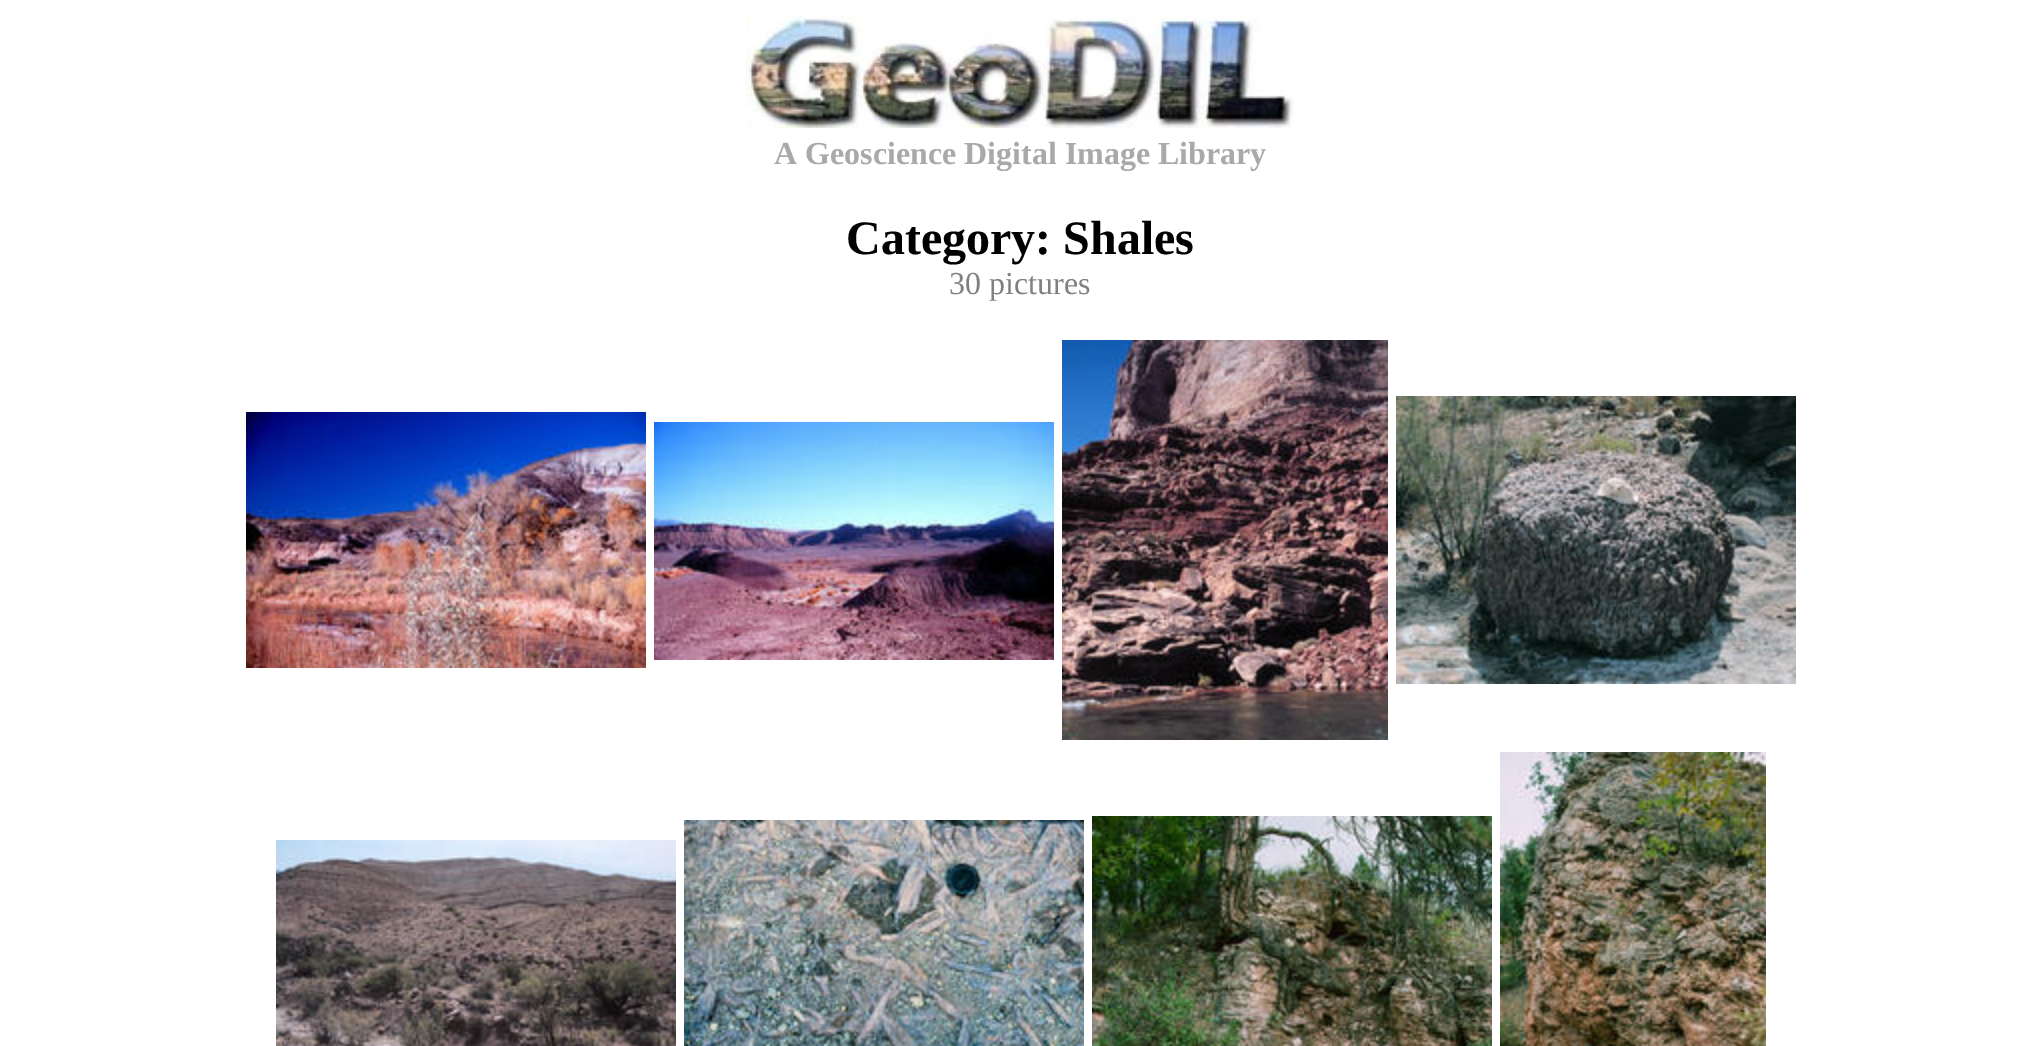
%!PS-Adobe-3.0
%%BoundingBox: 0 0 2040 1046
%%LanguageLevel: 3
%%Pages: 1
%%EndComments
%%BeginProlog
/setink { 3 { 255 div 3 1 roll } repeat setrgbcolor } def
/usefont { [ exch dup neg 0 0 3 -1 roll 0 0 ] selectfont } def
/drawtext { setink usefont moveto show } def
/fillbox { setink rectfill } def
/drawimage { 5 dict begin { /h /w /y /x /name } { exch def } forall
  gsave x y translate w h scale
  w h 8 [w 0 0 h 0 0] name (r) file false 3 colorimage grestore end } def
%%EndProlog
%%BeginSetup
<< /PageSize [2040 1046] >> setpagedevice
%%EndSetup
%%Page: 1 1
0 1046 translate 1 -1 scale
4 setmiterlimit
0 0 2040 1046 255 255 255 fillbox
(assets/img1.rgb) 746 16 548 112 drawimage
(A Geoscience Digital Image Library) 774 164 /LiberationSerif-Bold 32 169 169 169 drawtext
(Category: Shales) 846 254 /LiberationSerif-Bold 48 0 0 0 drawtext
(30 pictures) 949 294 /LiberationSerif-Regular 32 128 128 128 drawtext
(assets/img2.rgb) 246 412 400 256 drawimage
(assets/img3.rgb) 654 422 400 238 drawimage
(assets/img4.rgb) 1062 340 326 400 drawimage
(assets/img5.rgb) 1396 396 400 288 drawimage
(assets/img6.rgb) 276 840 400 206 drawimage
(assets/img7.rgb) 684 820 400 226 drawimage
(assets/img8.rgb) 1092 816 400 230 drawimage
(assets/img9.rgb) 1500 752 266 294 drawimage
showpage
%%EOF
